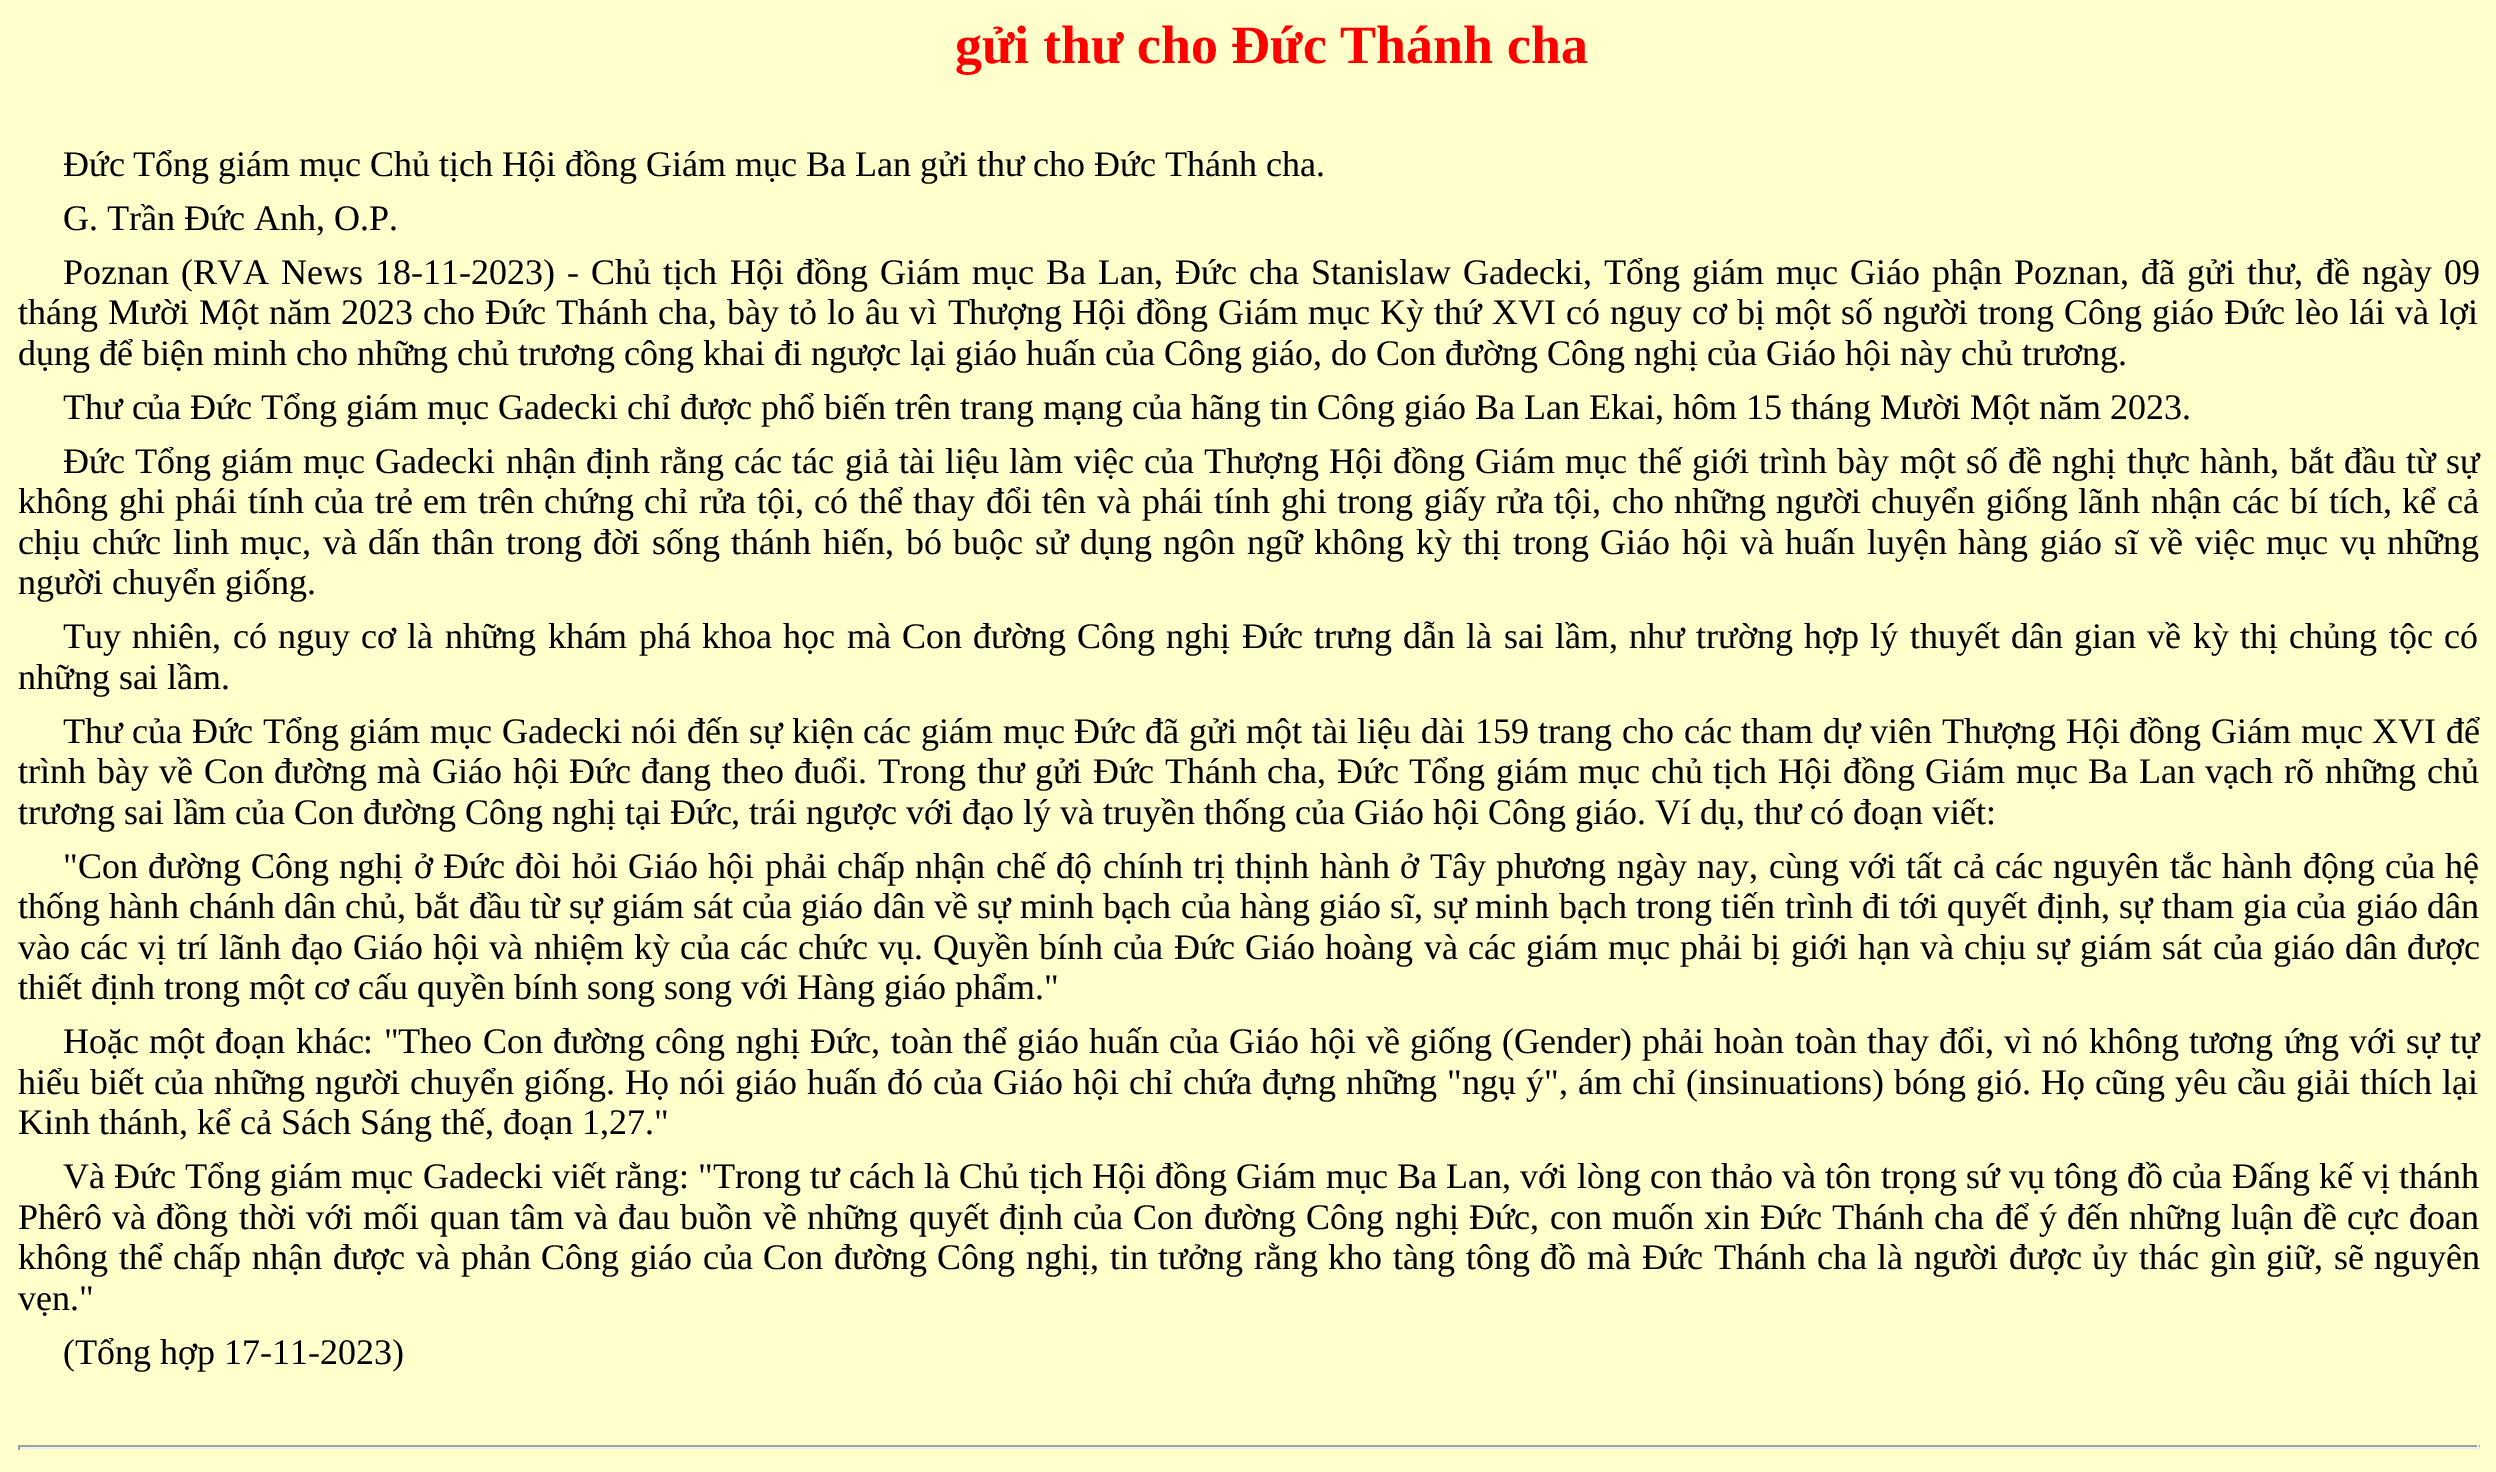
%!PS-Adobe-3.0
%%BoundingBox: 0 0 2496 1472
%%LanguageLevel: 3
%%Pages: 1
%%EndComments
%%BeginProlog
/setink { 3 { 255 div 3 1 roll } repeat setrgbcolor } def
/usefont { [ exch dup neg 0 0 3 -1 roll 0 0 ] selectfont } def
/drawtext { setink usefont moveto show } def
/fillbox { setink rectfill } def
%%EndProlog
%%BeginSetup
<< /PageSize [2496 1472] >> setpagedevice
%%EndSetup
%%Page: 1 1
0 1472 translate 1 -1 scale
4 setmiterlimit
0 0 2496 1472 255 255 204 fillbox
(gửi thư cho Ðức Thánh cha) 955 63 /LiberationSerif-Bold 54 255 0 0 drawtext
(Ðức Tổng giám mục Chủ tịch Hội đồng Giám mục Ba Lan gửi thư cho Ðức Thánh cha.) 63 176 /LiberationSerif-Regular 36 0 0 0 drawtext
(G. Trần Ðức Anh, O.P.) 63 230 /LiberationSerif-Regular 36 0 0 0 drawtext
63 284 moveto 3.1 0 32 (Poznan \(RVA News 18-11-2023\) - Chủ tịch Hội đồng Giám mục Ba Lan, Ðức cha Stanislaw Gadecki, Tổng giám mục Giáo phận Poznan, đã gửi thư, đề ngày 09) widthshow
18 324 moveto 1.05 0 32 (tháng Mười Một năm 2023 cho Ðức Thánh cha, bày tỏ lo âu vì Thượng Hội đồng Giám mục Kỳ thứ XVI có nguy cơ bị một số người trong Công giáo Ðức lèo lái và lợi) widthshow
(dụng để biện minh cho những chủ trương công khai đi ngược lại giáo huấn của Công giáo, do Con đường Công nghị của Giáo hội này chủ trương.) 18 365 /LiberationSerif-Regular 36 0 0 0 drawtext
(Thư của Ðức Tổng giám mục Gadecki chỉ được phổ biến trên trang mạng của hãng tin Công giáo Ba Lan Ekai, hôm 15 tháng Mười Một năm 2023.) 63 419 /LiberationSerif-Regular 36 0 0 0 drawtext
63 473 moveto 1.25 0 32 (Ðức Tổng giám mục Gadecki nhận định rằng các tác giả tài liệu làm việc của Thượng Hội đồng Giám mục thế giới trình bày một số đề nghị thực hành, bắt đầu từ sự) widthshow
18 513 moveto 1.55 0 32 (không ghi phái tính của trẻ em trên chứng chỉ rửa tội, có thể thay đổi tên và phái tính ghi trong giấy rửa tội, cho những người chuyển giống lãnh nhận các bí tích, kể cả) widthshow
18 554 moveto 2.6 0 32 (chịu chức linh mục, và dấn thân trong đời sống thánh hiến, bó buộc sử dụng ngôn ngữ không kỳ thị trong Giáo hội và huấn luyện hàng giáo sĩ về việc mục vụ những) widthshow
(người chuyển giống.) 18 594 /LiberationSerif-Regular 36 0 0 0 drawtext
63 648 moveto 2.3 0 32 (Tuy nhiên, có nguy cơ là những khám phá khoa học mà Con đường Công nghị Ðức trưng dẫn là sai lầm, như trường hợp lý thuyết dân gian về kỳ thị chủng tộc có) widthshow
(những sai lầm.) 18 689 /LiberationSerif-Regular 36 0 0 0 drawtext
63 743 moveto 0.65 0 32 (Thư của Ðức Tổng giám mục Gadecki nói đến sự kiện các giám mục Ðức đã gửi một tài liệu dài 159 trang cho các tham dự viên Thượng Hội đồng Giám mục XVI để) widthshow
18 783 moveto 1.6 0 32 (trình bày về Con đường mà Giáo hội Ðức đang theo đuổi. Trong thư gửi Ðức Thánh cha, Ðức Tổng giám mục chủ tịch Hội đồng Giám mục Ba Lan vạch rõ những chủ) widthshow
(trương sai lầm của Con đường Công nghị tại Ðức, trái ngược với đạo lý và truyền thống của Giáo hội Công giáo. Ví dụ, thư có đoạn viết:) 18 824 /LiberationSerif-Regular 36 0 0 0 drawtext
63 878 moveto 1.4 0 32 ("Con đường Công nghị ở Ðức đòi hỏi Giáo hội phải chấp nhận chế độ chính trị thịnh hành ở Tây phương ngày nay, cùng với tất cả các nguyên tắc hành động của hệ) widthshow
18 918 moveto 0.3 0 32 (thống hành chánh dân chủ, bắt đầu từ sự giám sát của giáo dân về sự minh bạch của hàng giáo sĩ, sự minh bạch trong tiến trình đi tới quyết định, sự tham gia của giáo dân) widthshow
18 959 moveto 1.2 0 32 (vào các vị trí lãnh đạo Giáo hội và nhiệm kỳ của các chức vụ. Quyền bính của Ðức Giáo hoàng và các giám mục phải bị giới hạn và chịu sự giám sát của giáo dân được) widthshow
(thiết định trong một cơ cấu quyền bính song song với Hàng giáo phẩm.") 18 999 /LiberationSerif-Regular 36 0 0 0 drawtext
63 1053 moveto 1.2 0 32 (Hoặc một đoạn khác: "Theo Con đường công nghị Ðức, toàn thể giáo huấn của Giáo hội về giống \(Gender\) phải hoàn toàn thay đổi, vì nó không tương ứng với sự tự) widthshow
18 1094 moveto 1 0 32 (hiểu biết của những người chuyển giống. Họ nói giáo huấn đó của Giáo hội chỉ chứa đựng những "ngụ ý", ám chỉ \(insinuations\) bóng gió. Họ cũng yêu cầu giải thích lại) widthshow
(Kinh thánh, kể cả Sách Sáng thế, đoạn 1,27.") 18 1134 /LiberationSerif-Regular 36 0 0 0 drawtext
63 1188 moveto 0.25 0 32 (Và Ðức Tổng giám mục Gadecki viết rằng: "Trong tư cách là Chủ tịch Hội đồng Giám mục Ba Lan, với lòng con thảo và tôn trọng sứ vụ tông đồ của Ðấng kế vị thánh) widthshow
18 1229 moveto 1.25 0 32 (Phêrô và đồng thời với mối quan tâm và đau buồn về những quyết định của Con đường Công nghị Ðức, con muốn xin Ðức Thánh cha để ý đến những luận đề cực đoan) widthshow
18 1269 moveto 1.7 0 32 (không thể chấp nhận được và phản Công giáo của Con đường Công nghị, tin tưởng rằng kho tàng tông đồ mà Ðức Thánh cha là người được ủy thác gìn giữ, sẽ nguyên) widthshow
(vẹn.") 18 1310 /LiberationSerif-Regular 36 0 0 0 drawtext
(\(Tổng hợp 17-11-2023\)) 63 1364 /LiberationSerif-Regular 36 0 0 0 drawtext
18 1445 2462 2 159 159 159 fillbox
2477 1445 2 5 238 238 238 fillbox
18 1447 2462 2 238 238 238 fillbox
18 1445 2 5 159 159 159 fillbox
showpage
%%EOF
